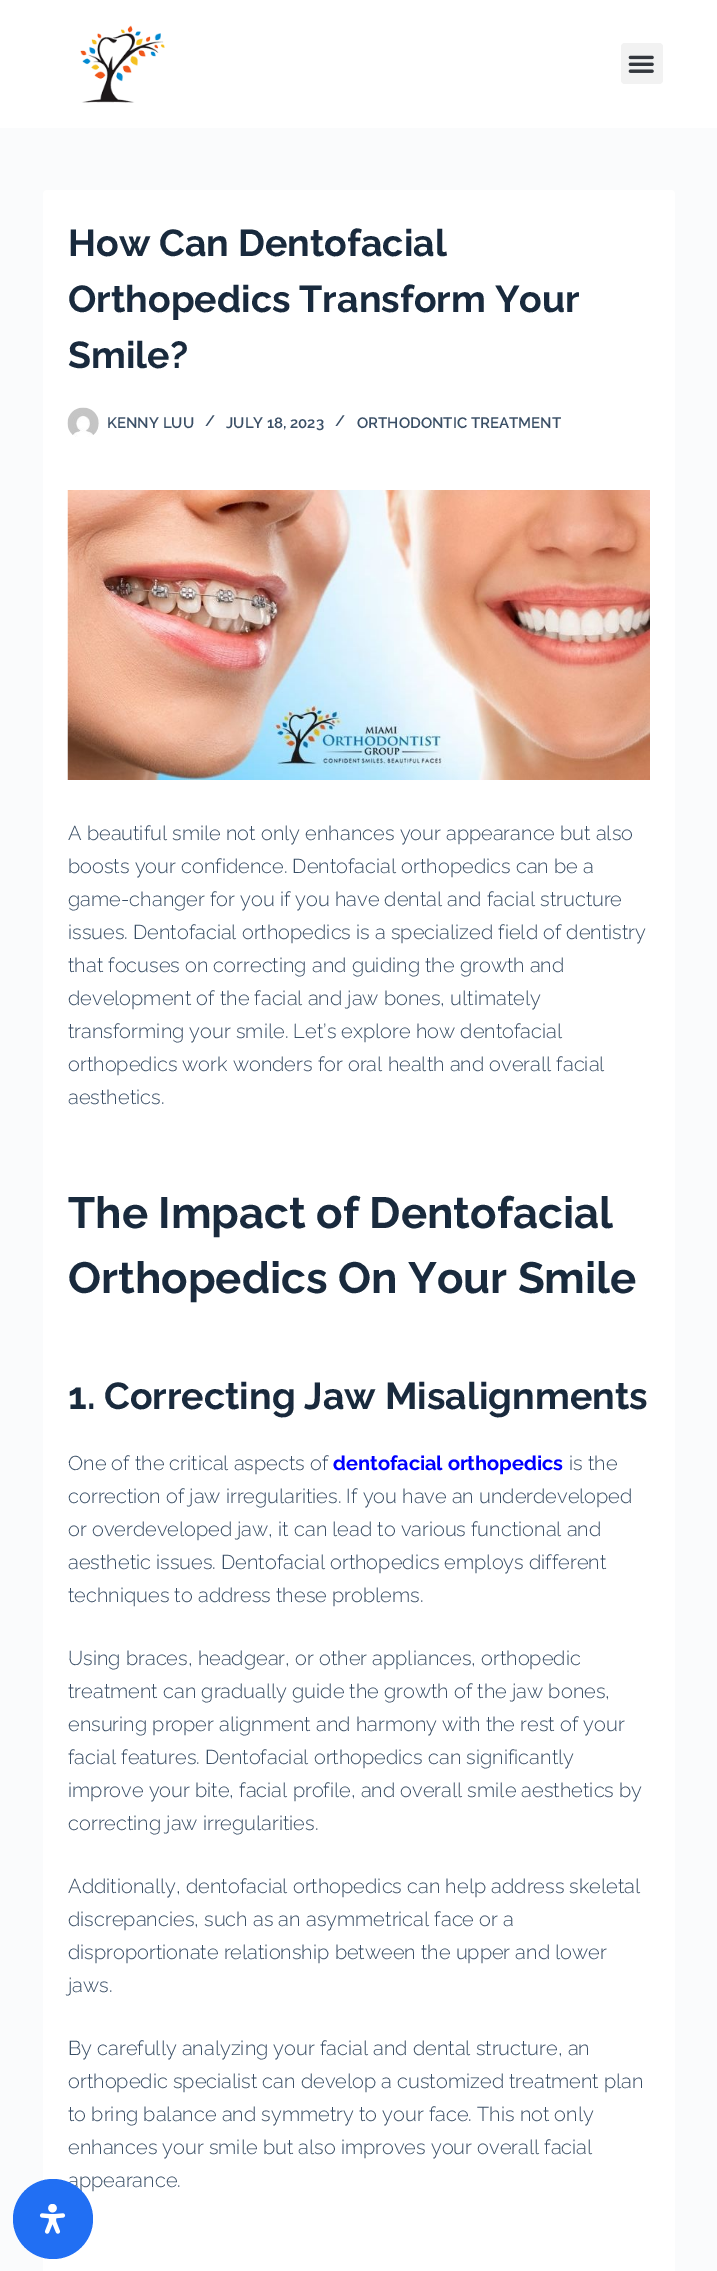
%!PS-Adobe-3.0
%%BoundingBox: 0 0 717 2271
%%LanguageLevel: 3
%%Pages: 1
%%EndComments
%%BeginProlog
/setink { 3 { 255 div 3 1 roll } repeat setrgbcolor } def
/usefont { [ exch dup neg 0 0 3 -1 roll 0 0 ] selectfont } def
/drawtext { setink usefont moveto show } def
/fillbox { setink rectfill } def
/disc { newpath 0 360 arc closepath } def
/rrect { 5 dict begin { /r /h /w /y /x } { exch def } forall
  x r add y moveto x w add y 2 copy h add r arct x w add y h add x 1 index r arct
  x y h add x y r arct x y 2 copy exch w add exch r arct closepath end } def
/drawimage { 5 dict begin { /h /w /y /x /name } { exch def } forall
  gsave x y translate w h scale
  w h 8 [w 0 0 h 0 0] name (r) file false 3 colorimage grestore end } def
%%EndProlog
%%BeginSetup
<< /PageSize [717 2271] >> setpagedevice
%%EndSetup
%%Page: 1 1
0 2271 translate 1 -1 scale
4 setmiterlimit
0 0 717 2271 250 251 252 fillbox
0 0 717 128 255 255 255 fillbox
(assets/img1.rgb) 80 25 85 78 drawimage
242 242 242 setink
621 43 42 41 4 rrect fill
(assets/img2.rgb) 628 55 26 18 drawimage
255 255 255 setink
43 190 632 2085 4 rrect fill
(How Can Dentofacial) 68 256 /Raleway-Bold 37.5 25 42 61 drawtext
(Orthopedics Transform Your) 68 312 /Raleway-Bold 37.5 25 42 61 drawtext
(Smile?) 68 368 /Raleway-Bold 37.5 25 42 61 drawtext
(assets/img3.rgb) 67 407 32 30 drawimage
(KENNY LUU) 107 428 /Raleway-SemiBold 15 58 79 102 drawtext
(/) 205 426 /Raleway-SemiBold 15 58 79 102 drawtext
(JULY 18, 2023) 226 428 /Raleway-SemiBold 15 58 79 102 drawtext
(/) 335 426 /Raleway-SemiBold 15 58 79 102 drawtext
(ORTHODONTIC TREATMENT) 357 428 /Raleway-SemiBold 15 58 79 102 drawtext
(assets/img4.rgb) 67 490 583 290 drawimage
(A beautiful smile not only enhances your appearance but also) 68 840 /Raleway-Light 20 58 79 102 drawtext
(boosts your confidence. Dentofacial orthopedics can be a) 68 873 /Raleway-Light 20 58 79 102 drawtext
(game-changer for you if you have dental and facial structure) 68 906 /Raleway-Light 20 58 79 102 drawtext
(issues. Dentofacial orthopedics is a specialized field of dentistry) 68 939 /Raleway-Light 20 58 79 102 drawtext
(that focuses on correcting and guiding the growth and) 68 972 /Raleway-Light 20 58 79 102 drawtext
(development of the facial and jaw bones, ultimately) 68 1005 /Raleway-Light 20 58 79 102 drawtext
(transforming your smile. Let’s explore how dentofacial) 68 1038 /Raleway-Light 20 58 79 102 drawtext
(orthopedics work wonders for oral health and overall facial) 68 1071 /Raleway-Light 20 58 79 102 drawtext
(aesthetics.) 68 1104 /Raleway-Light 20 58 79 102 drawtext
(The Impact of Dentofacial) 68 1228 /Raleway-Bold 43.75 25 42 61 drawtext
(Orthopedics On Your Smile) 68 1293 /Raleway-Bold 43.75 25 42 61 drawtext
(1. Correcting Jaw Misalignments) 68 1409 /Raleway-Bold 37.5 25 42 61 drawtext
(One of the critical aspects of) 68 1470 /Raleway-Light 20 58 79 102 drawtext
(dentofacial orthopedics) 333 1470 /Raleway-Bold 20 0 0 255 drawtext
(is the) 569 1470 /Raleway-Light 20 58 79 102 drawtext
(correction of jaw irregularities. If you have an underdeveloped) 68 1503 /Raleway-Light 20 58 79 102 drawtext
(or overdeveloped jaw, it can lead to various functional and) 68 1536 /Raleway-Light 20 58 79 102 drawtext
(aesthetic issues. Dentofacial orthopedics employs different) 68 1569 /Raleway-Light 20 58 79 102 drawtext
(techniques to address these problems.) 68 1602 /Raleway-Light 20 58 79 102 drawtext
(Using braces, headgear, or other appliances, orthopedic) 68 1665 /Raleway-Light 20 58 79 102 drawtext
(treatment can gradually guide the growth of the jaw bones,) 68 1698 /Raleway-Light 20 58 79 102 drawtext
(ensuring proper alignment and harmony with the rest of your) 68 1731 /Raleway-Light 20 58 79 102 drawtext
(facial features. Dentofacial orthopedics can significantly) 68 1764 /Raleway-Light 20 58 79 102 drawtext
(improve your bite, facial profile, and overall smile aesthetics by) 68 1797 /Raleway-Light 20 58 79 102 drawtext
(correcting jaw irregularities.) 68 1830 /Raleway-Light 20 58 79 102 drawtext
(Additionally, dentofacial orthopedics can help address skeletal) 68 1893 /Raleway-Light 20 58 79 102 drawtext
(discrepancies, such as an asymmetrical face or a) 68 1926 /Raleway-Light 20 58 79 102 drawtext
(disproportionate relationship between the upper and lower) 68 1959 /Raleway-Light 20 58 79 102 drawtext
(jaws.) 68 1992 /Raleway-Light 20 58 79 102 drawtext
(By carefully analyzing your facial and dental structure, an) 68 2055 /Raleway-Light 20 58 79 102 drawtext
(orthopedic specialist can develop a customized treatment plan) 68 2088 /Raleway-Light 20 58 79 102 drawtext
(to bring balance and symmetry to your face. This not only) 68 2121 /Raleway-Light 20 58 79 102 drawtext
(enhances your smile but also improves your overall facial) 68 2154 /Raleway-Light 20 58 79 102 drawtext
(appearance.) 68 2187 /Raleway-Light 20 58 79 102 drawtext
33 111 243 setink
53 2219 40 disc fill
(assets/img5.rgb) 39 2204 27 30 drawimage
showpage
%%EOF
